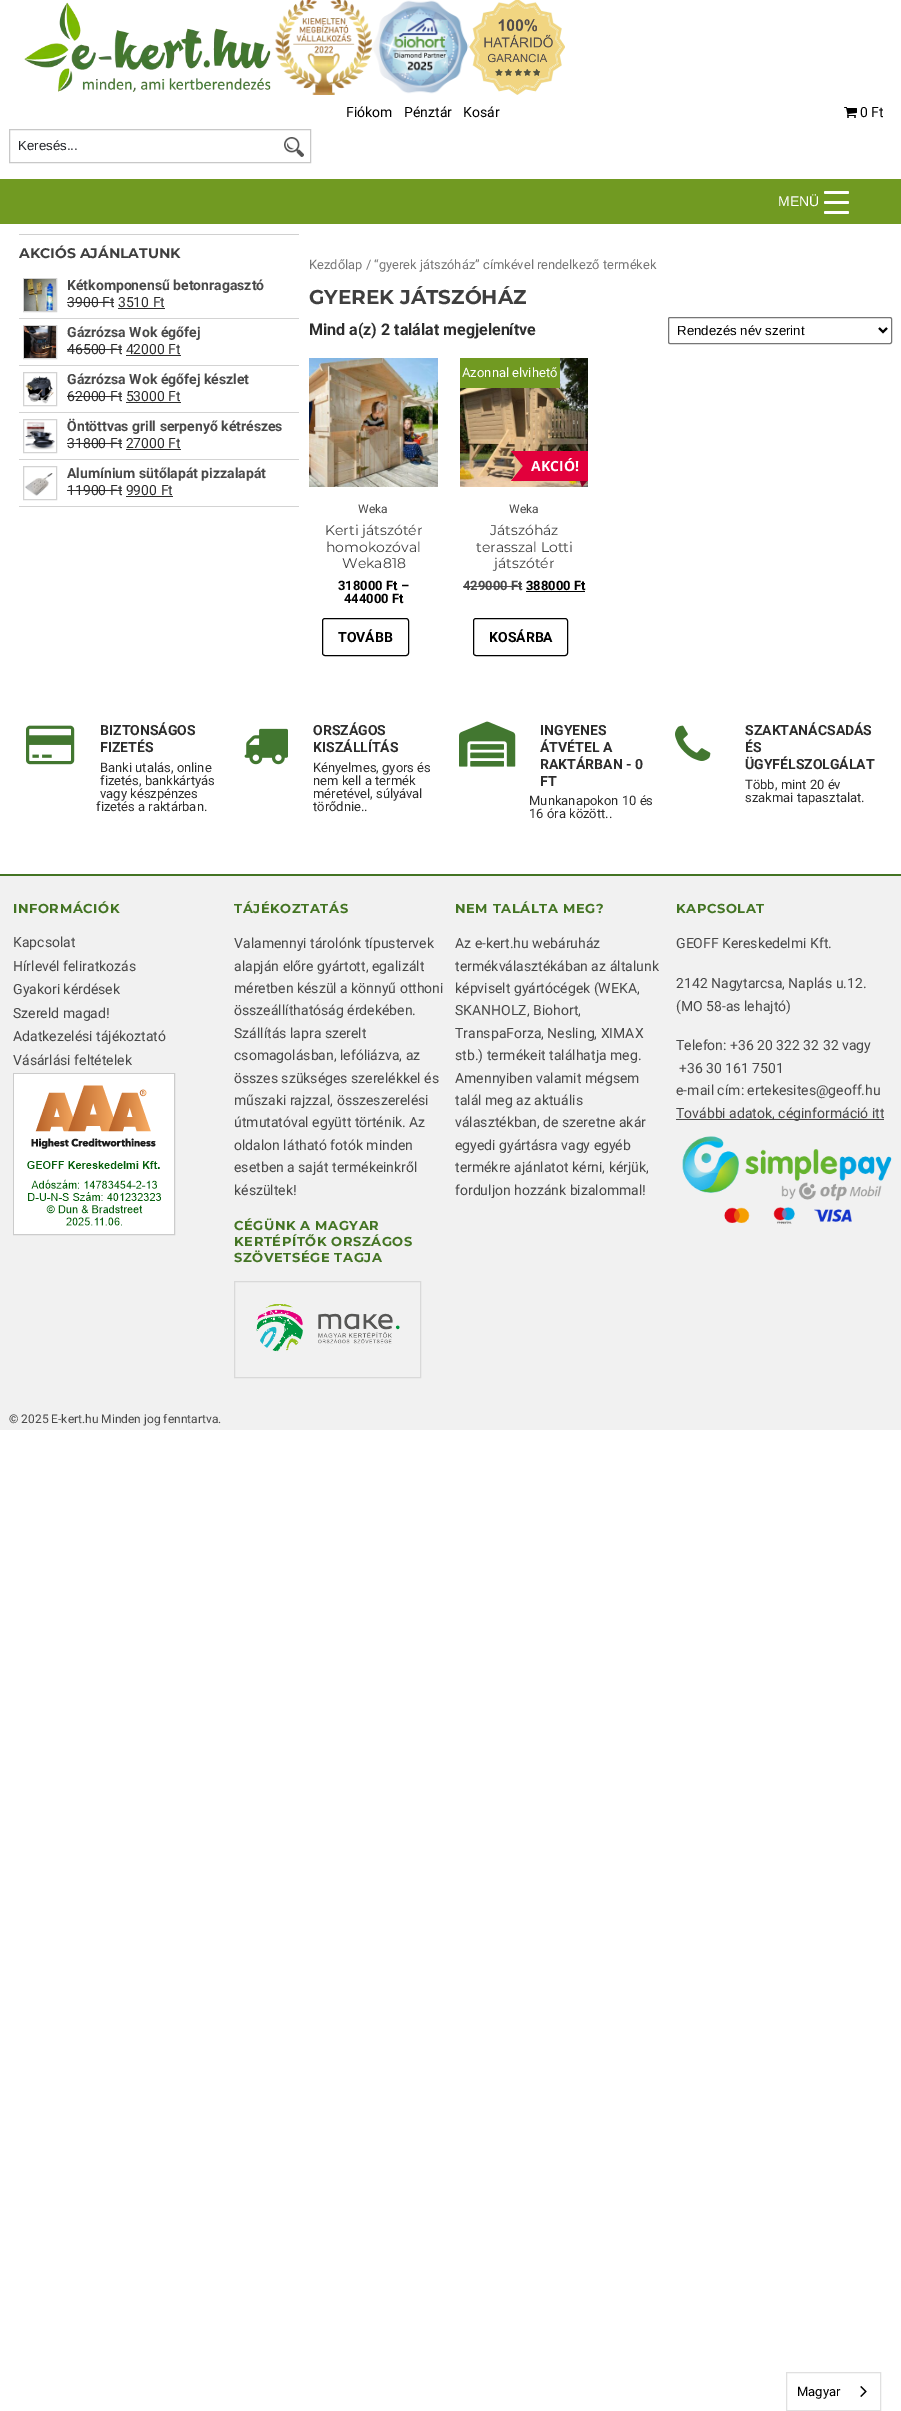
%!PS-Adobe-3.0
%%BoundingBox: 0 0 901 2411
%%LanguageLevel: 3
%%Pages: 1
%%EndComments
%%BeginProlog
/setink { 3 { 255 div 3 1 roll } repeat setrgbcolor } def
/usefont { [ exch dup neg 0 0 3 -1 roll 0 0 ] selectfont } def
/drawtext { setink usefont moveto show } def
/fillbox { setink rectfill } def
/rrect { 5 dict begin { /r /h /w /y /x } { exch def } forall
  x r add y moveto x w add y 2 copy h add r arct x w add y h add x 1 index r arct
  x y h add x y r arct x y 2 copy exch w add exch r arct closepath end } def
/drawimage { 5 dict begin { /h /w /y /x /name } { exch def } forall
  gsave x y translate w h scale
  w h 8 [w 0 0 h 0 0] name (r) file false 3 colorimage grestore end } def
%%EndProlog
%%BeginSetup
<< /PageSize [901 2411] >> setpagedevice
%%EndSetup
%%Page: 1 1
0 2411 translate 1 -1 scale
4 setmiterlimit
0 0 901 2411 255 255 255 fillbox
(assets/img1.rgb) 24 0 541 95 drawimage
(Fiókom) 346 117 /Roboto-Regular 14 0 0 0 drawtext
(Pénztár) 404 117 /Roboto-Regular 14 0 0 0 drawtext
(Kosár) 463 117 /Roboto-Regular 14 0 0 0 drawtext
(assets/img2.rgb) 844 107 13 11 drawimage
(0 Ft) 860 117 /Roboto-Regular 14 0 0 0 drawtext
200 200 200 setink
9.5 129.5 301 33 rectstroke
(Keresés...) 18 150 /LiberationSans-Regular 13.25 36 38 43 drawtext
(assets/img3.rgb) 284 137 20 20 drawimage
0 179 901 45 113 154 34 fillbox
(MENÜ) 778 206 /LiberationSans-Regular 14 255 255 255 drawtext
824 201 25 3 1.5 rrect fill
824 191 25 3 1.5 rrect fill
824 211 25 3 1.5 rrect fill
19 234 280 1 208 208 208 fillbox
(AKCIÓS AJÁNLATUNK) 19 258 /Montserrat-Bold 14 63 63 63 drawtext
19 318 280 1 211 211 211 fillbox
23.5 278.5 33 33 rectstroke
(assets/img4.rgb) 24 279 32 32 drawimage
(Kétkomponensű betonragasztó) 67 290 /Roboto-Bold 14 72 72 72 drawtext
(3900 Ft 3510 Ft) 67 307 /Roboto-Regular 14 45 45 45 drawtext
67 302 47 1 45 45 45 fillbox
118 308 47 1 45 45 45 fillbox
19 365 280 1 211 211 211 fillbox
23.5 325.5 33 33 rectstroke
(assets/img5.rgb) 24 326 32 32 drawimage
(Gázrózsa Wok égőfej) 67 337 /Roboto-Bold 14 72 72 72 drawtext
(46500 Ft 42000 Ft) 67 354 /Roboto-Regular 14 45 45 45 drawtext
67 349 55 1 45 45 45 fillbox
126 355 55 1 45 45 45 fillbox
19 412 280 1 211 211 211 fillbox
23.5 372.5 33 33 rectstroke
(assets/img6.rgb) 25 376 29 28 drawimage
(Gázrózsa Wok égőfej készlet) 67 384 /Roboto-Bold 14 72 72 72 drawtext
(62000 Ft 53000 Ft) 67 401 /Roboto-Regular 14 45 45 45 drawtext
67 396 55 1 45 45 45 fillbox
126 402 55 1 45 45 45 fillbox
19 459 280 1 211 211 211 fillbox
23.5 419.5 33 33 rectstroke
(assets/img7.rgb) 25 421 30 29 drawimage
(Öntöttvas grill serpenyő kétrészes) 67 431 /Roboto-Bold 14 72 72 72 drawtext
(31800 Ft 27000 Ft) 67 448 /Roboto-Regular 14 45 45 45 drawtext
67 443 55 1 45 45 45 fillbox
126 449 55 1 45 45 45 fillbox
19 506 280 1 211 211 211 fillbox
23.5 466.5 33 33 rectstroke
(assets/img8.rgb) 25 473 28 23 drawimage
(Alumínium sütőlapát pizzalapát) 67 478 /Roboto-Bold 14 72 72 72 drawtext
(11900 Ft 9900 Ft) 67 495 /Roboto-Regular 14 45 45 45 drawtext
67 490 55 1 45 45 45 fillbox
126 496 47 1 45 45 45 fillbox
(Kezdőlap / “gyerek játszóház” címkével rendelkező termékek) 309 269 /Roboto-Regular 12.9 118 118 118 drawtext
(GYEREK JÁTSZÓHÁZ) 309 304 /Montserrat-Bold 20 63 63 63 drawtext
(Mind a\(z\) 2 találat megjelenítve) 309 335 /Roboto-Bold 16 45 45 45 drawtext
118 118 118 setink
668.5 317.5 223 26 1.5 rrect stroke
0 0 0 setink
2 setlinewidth
879 328 moveto 883 332 lineto 887 328 lineto stroke
(Rendezés név szerint) 677 335 /LiberationSans-Regular 13.25 0 0 0 drawtext
(assets/img9.rgb) 309 358 129 129 drawimage
(Weka) 358 513 /Roboto-Regular 12 72 72 72 drawtext
(Kerti játszótér) 325 535 /Montserrat-Regular 14 63 63 63 drawtext
(homokozóval) 326 552 /Montserrat-Regular 14 63 63 63 drawtext
(Weka818) 342 568 /Montserrat-Regular 14 63 63 63 drawtext
(318000 Ft –) 338 590 /Roboto-Bold 13 0 0 0 drawtext
(444000 Ft) 344 603 /Roboto-Bold 13 0 0 0 drawtext
1 setlinewidth
322.5 618.5 86 37 2.5 rrect stroke
(TOVÁBB) 338 642 /Roboto-Bold 14 0 0 0 drawtext
(assets/img10.rgb) 460 358 128 129 drawimage
460 358 100 30 113 154 34 fillbox
(Azonnal elvihető) 462 377 /Roboto-Regular 13 255 255 255 drawtext
523 451 65 30 226 0 60 fillbox
523 451 moveto 523 466 lineto 511 451 lineto closepath 523 466 moveto 523 481 lineto 511 481 lineto closepath fill
(AKCIÓ!) 531 471 /OpenSans-Bold 14 255 255 255 drawtext
135 0 36 setink
580 481 moveto 587 481 lineto 582 487 lineto closepath fill
(Weka) 509 513 /Roboto-Regular 12 72 72 72 drawtext
(Játszóház) 490 535 /Montserrat-Regular 14 63 63 63 drawtext
(terasszal Lotti) 476 552 /Montserrat-Regular 14 63 63 63 drawtext
(játszótér) 494 568 /Montserrat-Regular 14 63 63 63 drawtext
(429000 Ft) 463 590 /Roboto-Bold 13 72 72 72 drawtext
463 586 59 1 77 77 77 fillbox
(388000 Ft) 526 590 /Roboto-Bold 13 0 0 0 drawtext
526 591 59 1 0 0 0 fillbox
473.5 618.5 94 37 2.5 rrect stroke
(KOSÁRBA) 489 642 /Roboto-Bold 14 0 0 0 drawtext
(assets/img11.rgb) 26 725 49 40 drawimage
(BIZTONSÁGOS) 100 735 /Roboto-Bold 14 45 45 45 drawtext
(FIZETÉS) 100 752 /Roboto-Bold 14 45 45 45 drawtext
(Banki utalás, online) 100 772 /Roboto-Regular 13 45 45 45 drawtext
(fizetés, bankkártyás) 100 785 /Roboto-Regular 13 45 45 45 drawtext
(vagy készpénzes) 100 798 /Roboto-Regular 13 45 45 45 drawtext
(fizetés a raktárban.) 96 811 /Roboto-Regular 13 45 45 45 drawtext
(assets/img12.rgb) 244 728 44 37 drawimage
(ORSZÁGOS) 313 735 /Roboto-Bold 14 45 45 45 drawtext
(KISZÁLLÍTÁS) 313 752 /Roboto-Bold 14 45 45 45 drawtext
(Kényelmes, gyors és) 313 772 /Roboto-Regular 13 45 45 45 drawtext
(nem kell a termék) 313 785 /Roboto-Regular 13 45 45 45 drawtext
(méretével, súlyával) 313 798 /Roboto-Regular 13 45 45 45 drawtext
(törődnie..) 313 811 /Roboto-Regular 13 45 45 45 drawtext
(assets/img13.rgb) 459 721 57 46 drawimage
(INGYENES) 540 735 /Roboto-Bold 14 45 45 45 drawtext
(ÁTVÉTEL A) 540 752 /Roboto-Bold 14 45 45 45 drawtext
(RAKTÁRBAN - 0) 540 769 /Roboto-Bold 14 45 45 45 drawtext
(FT) 540 786 /Roboto-Bold 14 45 45 45 drawtext
(Munkanapokon 10 és) 529 805 /Roboto-Regular 13 45 45 45 drawtext
(16 óra között..) 529 818 /Roboto-Regular 13 45 45 45 drawtext
(assets/img14.rgb) 675 725 36 36 drawimage
(SZAKTANÁCSADÁS) 745 735 /Roboto-Bold 14 45 45 45 drawtext
(ÉS) 745 752 /Roboto-Bold 14 45 45 45 drawtext
(ÜGYFÉLSZOLGÁLAT) 745 769 /Roboto-Bold 14 45 45 45 drawtext
(Több, mint 20 év) 745 789 /Roboto-Regular 13 45 45 45 drawtext
(szakmai tapasztalat.) 745 802 /Roboto-Regular 13 45 45 45 drawtext
0 876 901 554 241 241 241 fillbox
0 874 901 2 67 116 35 fillbox
/Montserrat-Bold 13 usefont
13 913 moveto 0.6 0 (INFORMÁCIÓK) ashow
(Kapcsolat) 13 947 /Roboto-Regular 14 72 72 72 drawtext
(Hírlevél feliratkozás) 13 971 /Roboto-Regular 14 72 72 72 drawtext
(Gyakori kérdések) 13 994 /Roboto-Regular 14 72 72 72 drawtext
(Szereld magad!) 13 1018 /Roboto-Regular 14 72 72 72 drawtext
(Adatkezelési tájékoztató) 13 1041 /Roboto-Regular 14 72 72 72 drawtext
(Vásárlási feltételek) 13 1065 /Roboto-Regular 14 72 72 72 drawtext
204 204 204 setink
13.5 1073.5 161 161 rectstroke
(assets/img15.rgb) 14 1074 160 160 drawimage
/Montserrat-Bold 13 usefont
67 116 35 setink
234 913 moveto 0.6 0 (TÁJÉKOZTATÁS) ashow
(Valamennyi tárolónk típustervek) 234 948 /Roboto-Regular 14 72 72 72 drawtext
(alapján előre gyártott, egalizált) 234 971 /Roboto-Regular 14 72 72 72 drawtext
(méretben készül a könnyű otthoni) 234 993 /Roboto-Regular 14 72 72 72 drawtext
(összeállíthatóság érdekében.) 234 1015 /Roboto-Regular 14 72 72 72 drawtext
(Szállítás lapra szerelt) 234 1038 /Roboto-Regular 14 72 72 72 drawtext
(csomagolásban, lefóliázva, az) 234 1060 /Roboto-Regular 14 72 72 72 drawtext
(összes szükséges szerelékkel és) 234 1083 /Roboto-Regular 14 72 72 72 drawtext
(műszaki rajzzal, összeszerelési) 234 1105 /Roboto-Regular 14 72 72 72 drawtext
(útmutatóval együtt történik. Az) 234 1127 /Roboto-Regular 14 72 72 72 drawtext
(oldalon látható fotók minden) 234 1150 /Roboto-Regular 14 72 72 72 drawtext
(esetben a saját termékeinkről) 234 1172 /Roboto-Regular 14 72 72 72 drawtext
(készültek!) 234 1195 /Roboto-Regular 14 72 72 72 drawtext
/Montserrat-Bold 13 usefont
67 116 35 setink
234 1230 moveto 0.6 0 (CÉGÜNK A MAGYAR) ashow
234 1246 moveto 0.6 0 (KERTÉPÍTŐK ORSZÁGOS) ashow
234 1262 moveto 0.6 0 (SZÖVETSÉGE TAGJA) ashow
217 217 217 setink
234.5 1281.5 186 96 rectstroke
(assets/img16.rgb) 256 1304 144 48 drawimage
67 116 35 setink
455 913 moveto 0.6 0 (NEM TALÁLTA MEG?) ashow
(Az e-kert.hu webáruház) 455 948 /Roboto-Regular 14 72 72 72 drawtext
(termékválasztékában az általunk) 455 971 /Roboto-Regular 14 72 72 72 drawtext
(képviselt gyártócégek \(WEKA,) 455 993 /Roboto-Regular 14 72 72 72 drawtext
(SKANHOLZ, Biohort,) 455 1015 /Roboto-Regular 14 72 72 72 drawtext
(TranspaForza, Nesling, XIMAX) 455 1038 /Roboto-Regular 14 72 72 72 drawtext
(stb.\) termékeit találhatja meg.) 455 1060 /Roboto-Regular 14 72 72 72 drawtext
(Amennyiben valamit mégsem) 455 1083 /Roboto-Regular 14 72 72 72 drawtext
(talál meg az aktuális) 455 1105 /Roboto-Regular 14 72 72 72 drawtext
(választékban, de szeretne akár) 455 1127 /Roboto-Regular 14 72 72 72 drawtext
(egyedi gyártásra vagy egyéb) 455 1150 /Roboto-Regular 14 72 72 72 drawtext
(termékre ajánlatot kérni, kérjük,) 455 1172 /Roboto-Regular 14 72 72 72 drawtext
(forduljon hozzánk bizalommal!) 455 1195 /Roboto-Regular 14 72 72 72 drawtext
/Montserrat-Bold 13 usefont
67 116 35 setink
676 913 moveto 0.6 0 (KAPCSOLAT) ashow
(GEOFF Kereskedelmi Kft.) 676 948 /Roboto-Regular 14 72 72 72 drawtext
(2142 Nagytarcsa, Naplás u.12.) 676 988 /Roboto-Regular 14 72 72 72 drawtext
(\(MO 58-as lehajtó\)) 676 1011 /Roboto-Regular 14 72 72 72 drawtext
(Telefon: +36 20 322 32 32 vagy) 676 1050 /Roboto-Regular 14 72 72 72 drawtext
(+36 30 161 7501) 679 1073 /Roboto-Regular 14 72 72 72 drawtext
(e-mail cím: ertekesites@geoff.hu) 676 1095 /Roboto-Regular 14 72 72 72 drawtext
676 1119 208 1 72 72 72 fillbox
(További adatok, céginformáció itt) 676 1118 /Roboto-Regular 14 72 72 72 drawtext
(assets/img17.rgb) 682 1136 210 88 drawimage
(© 2025 E-kert.hu Minden jog fenntartva.) 9 1423 /Roboto-Regular 12 72 72 72 drawtext
224 224 224 setink
786.5 2372.5 94 38 rectstroke
(Magyar) 797 2396 /Roboto-Regular 13 0 0 0 drawtext
(assets/img18.rgb) 860 2386 7 11 drawimage
showpage
%%EOF
